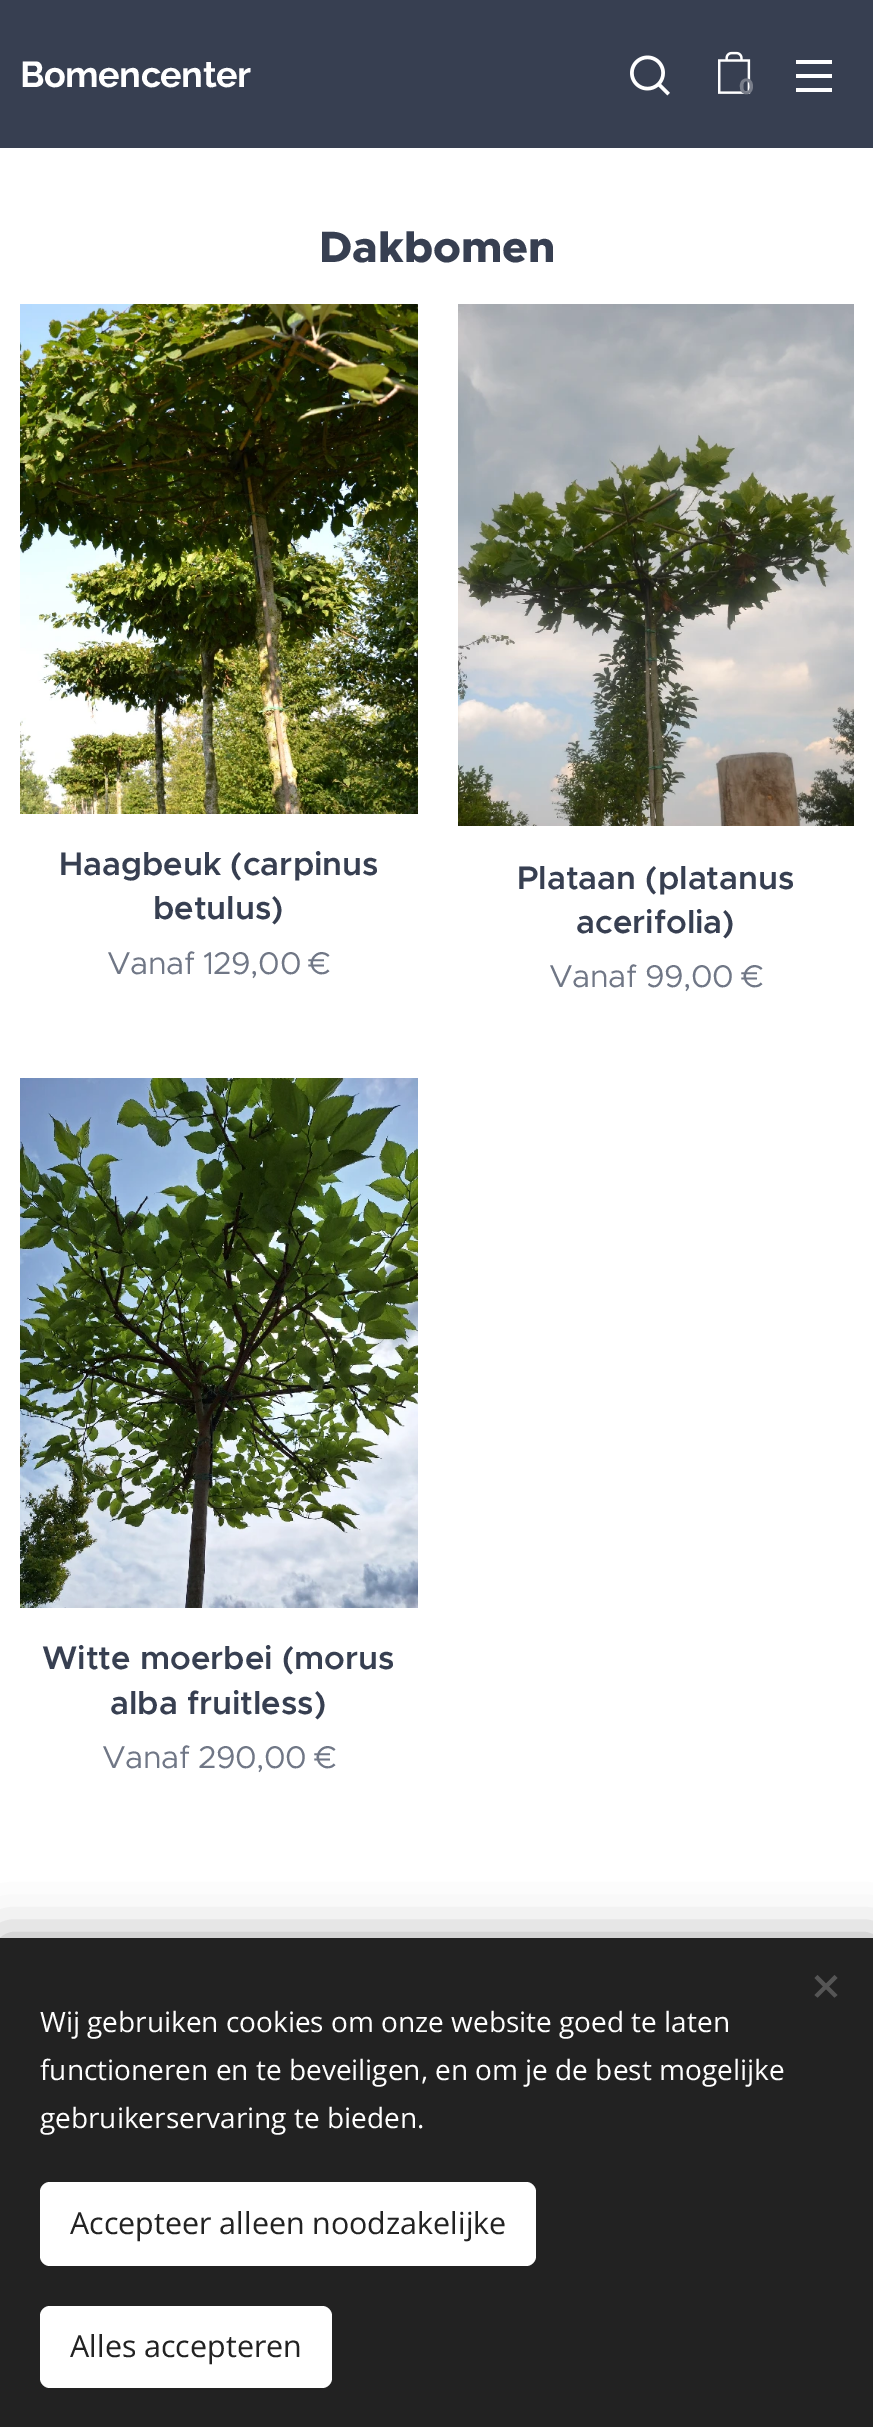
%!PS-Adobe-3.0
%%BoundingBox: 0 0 873 2427
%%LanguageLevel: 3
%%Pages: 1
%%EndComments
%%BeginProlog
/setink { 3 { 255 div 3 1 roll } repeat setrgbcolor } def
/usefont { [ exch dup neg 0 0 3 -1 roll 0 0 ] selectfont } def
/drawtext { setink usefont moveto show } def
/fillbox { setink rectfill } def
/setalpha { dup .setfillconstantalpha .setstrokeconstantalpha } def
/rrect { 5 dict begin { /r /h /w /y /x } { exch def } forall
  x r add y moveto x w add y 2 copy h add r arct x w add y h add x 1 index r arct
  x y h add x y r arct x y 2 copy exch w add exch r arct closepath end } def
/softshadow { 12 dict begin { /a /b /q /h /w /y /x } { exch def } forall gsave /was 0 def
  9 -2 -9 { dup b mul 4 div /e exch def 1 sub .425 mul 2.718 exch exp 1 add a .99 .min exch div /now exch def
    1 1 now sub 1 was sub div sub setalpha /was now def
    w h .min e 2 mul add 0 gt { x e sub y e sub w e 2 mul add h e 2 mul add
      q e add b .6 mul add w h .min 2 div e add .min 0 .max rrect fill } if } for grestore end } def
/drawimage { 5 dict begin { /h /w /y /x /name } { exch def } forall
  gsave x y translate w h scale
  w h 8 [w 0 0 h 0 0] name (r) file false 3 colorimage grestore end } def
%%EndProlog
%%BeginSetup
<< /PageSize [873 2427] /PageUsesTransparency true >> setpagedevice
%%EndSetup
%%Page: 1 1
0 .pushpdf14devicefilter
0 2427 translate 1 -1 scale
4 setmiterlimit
0 0 873 2427 255 255 255 fillbox
0 0 873 148 55 63 81 fillbox
/Raleway-Bold 36 usefont
255 255 255 setink
20 87 moveto -0.5 0 (Bomencenter) ashow
(assets/img1.rgb) 630 55 40 41 drawimage
(assets/img2.rgb) 718 51 33 43 drawimage
(0) 739 94 /Montserrat-Bold 22 120 125 137 drawtext
796 74 36 4 255 255 255 fillbox
796 60 36 4 255 255 255 fillbox
796 88 36 4 255 255 255 fillbox
(Dakbomen) 319 262 /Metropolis-ExtraBold 44 55 63 81 drawtext
(assets/img3.rgb) 20 304 398 510 drawimage
(Haagbeuk \(carpinus) 59 875 /Metropolis-SemiBold 32.75 55 63 81 drawtext
(betulus\)) 153 919 /Metropolis-SemiBold 32.75 55 63 81 drawtext
/Metropolis-Regular 31.5 usefont
112 119 134 setink
107 974 moveto -0.5 0 (Vanaf 129,00 €) ashow
(assets/img4.rgb) 458 304 396 522 drawimage
(Plataan \(platanus) 517 889 /Metropolis-SemiBold 32.75 55 63 81 drawtext
(acerifolia\)) 576 933 /Metropolis-SemiBold 32.75 55 63 81 drawtext
/Metropolis-Regular 31.5 usefont
112 119 134 setink
549 987 moveto -0.5 0 (Vanaf 99,00 €) ashow
(assets/img5.rgb) 20 1078 398 530 drawimage
(Witte moerbei \(morus) 42 1669 /Metropolis-SemiBold 32.75 55 63 81 drawtext
(alba fruitless\)) 110 1714 /Metropolis-SemiBold 32.75 55 63 81 drawtext
/Metropolis-Regular 31.5 usefont
112 119 134 setink
102 1768 moveto -0.5 0 (Vanaf 290,00 €) ashow
0 0 0 setink
0 1938 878 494 0 25 0.33 softshadow
0 1938 873 489 34 34 34 fillbox
85 85 85 setink
814.5 1995 moveto 834.5 1975 lineto 837.5 1978 lineto 817.5 1997.5 lineto closepath fill
817.5 1975 moveto 837.5 1995 lineto 834.5 1997.5 lineto 814.5 1978 lineto closepath fill
(Wij gebruiken cookies om onze website goed te laten) 40 2032 /OpenSans-Regular 28 255 255 255 drawtext
(functioneren en te beveiligen, en om je de best mogelijke) 40 2080 /OpenSans-Regular 28 255 255 255 drawtext
(gebruikerservaring te bieden.) 40 2128 /OpenSans-Regular 28 255 255 255 drawtext
40 2182 496 84 10 rrect fill
(Accepteer alleen noodzakelijke) 70 2234 /OpenSans-Regular 30.4 34 34 34 drawtext
255 255 255 setink
40 2306 292 82 10 rrect fill
(Alles accepteren) 70 2357 /OpenSans-Regular 30.4 34 34 34 drawtext
.poppdf14devicefilter showpage
%%EOF
